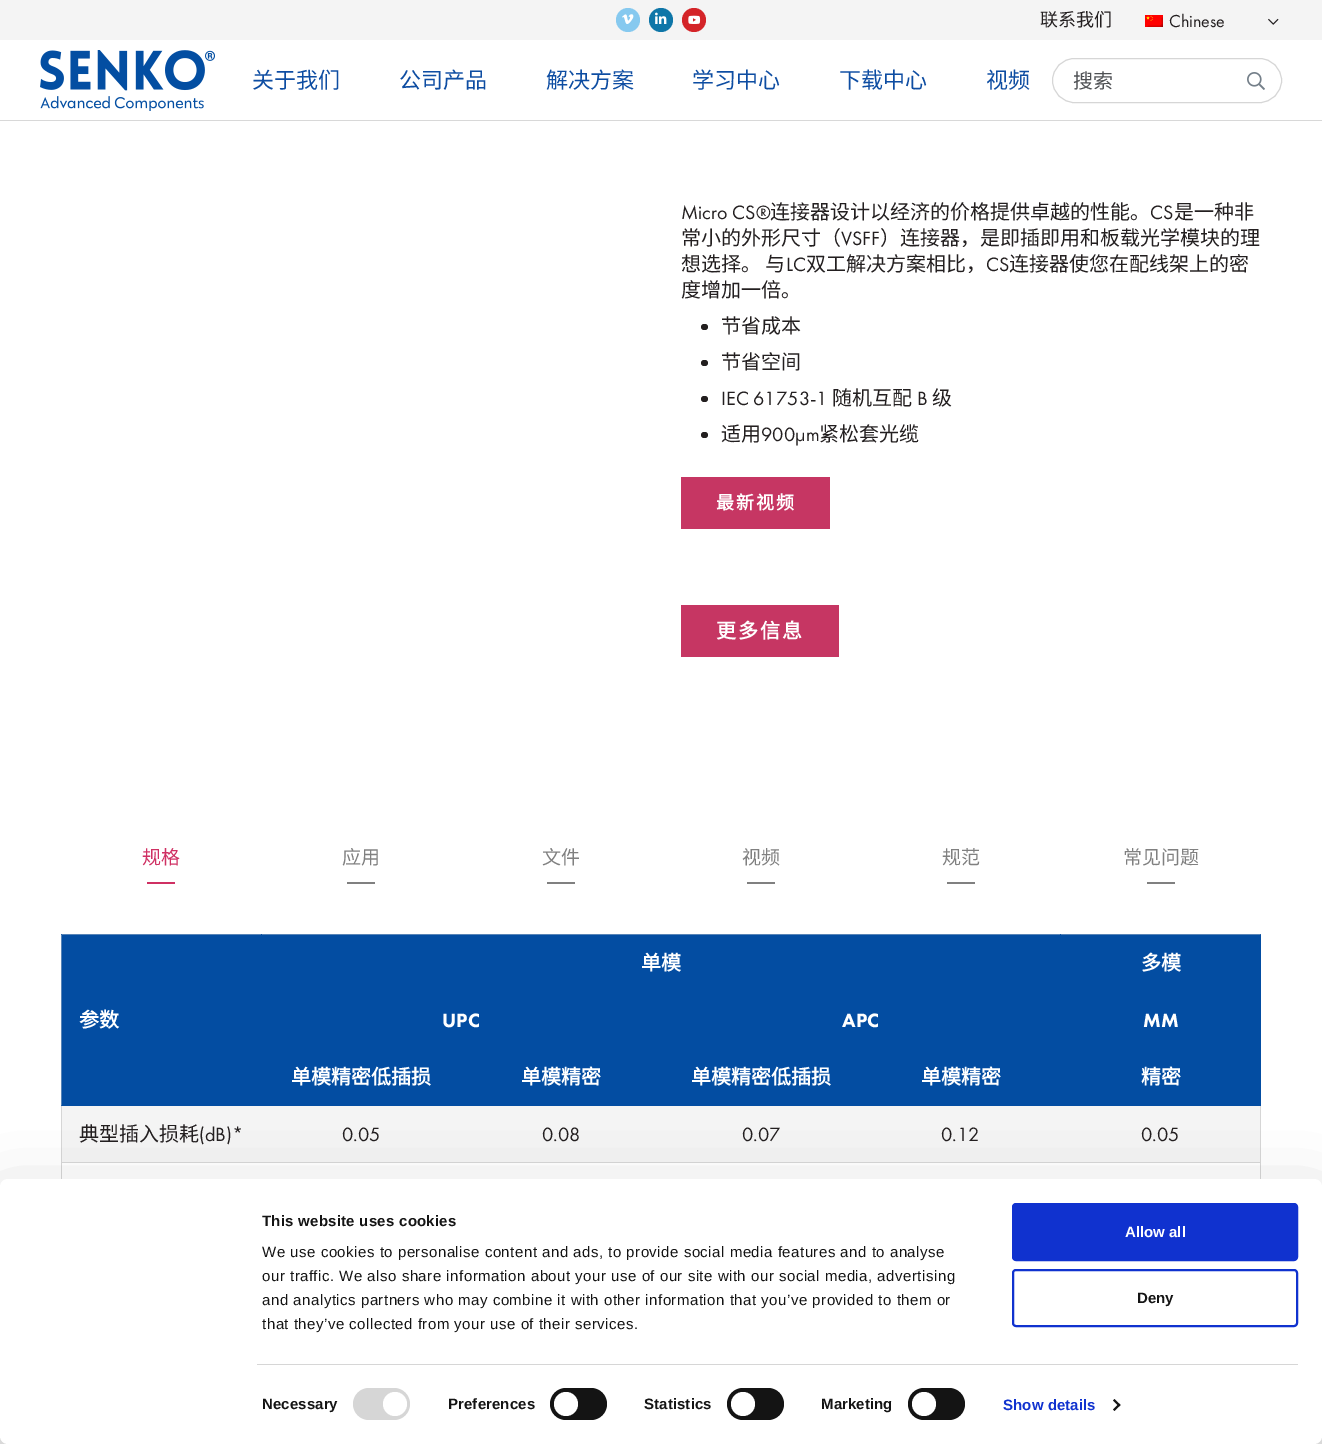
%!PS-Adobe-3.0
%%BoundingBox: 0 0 1322 1444
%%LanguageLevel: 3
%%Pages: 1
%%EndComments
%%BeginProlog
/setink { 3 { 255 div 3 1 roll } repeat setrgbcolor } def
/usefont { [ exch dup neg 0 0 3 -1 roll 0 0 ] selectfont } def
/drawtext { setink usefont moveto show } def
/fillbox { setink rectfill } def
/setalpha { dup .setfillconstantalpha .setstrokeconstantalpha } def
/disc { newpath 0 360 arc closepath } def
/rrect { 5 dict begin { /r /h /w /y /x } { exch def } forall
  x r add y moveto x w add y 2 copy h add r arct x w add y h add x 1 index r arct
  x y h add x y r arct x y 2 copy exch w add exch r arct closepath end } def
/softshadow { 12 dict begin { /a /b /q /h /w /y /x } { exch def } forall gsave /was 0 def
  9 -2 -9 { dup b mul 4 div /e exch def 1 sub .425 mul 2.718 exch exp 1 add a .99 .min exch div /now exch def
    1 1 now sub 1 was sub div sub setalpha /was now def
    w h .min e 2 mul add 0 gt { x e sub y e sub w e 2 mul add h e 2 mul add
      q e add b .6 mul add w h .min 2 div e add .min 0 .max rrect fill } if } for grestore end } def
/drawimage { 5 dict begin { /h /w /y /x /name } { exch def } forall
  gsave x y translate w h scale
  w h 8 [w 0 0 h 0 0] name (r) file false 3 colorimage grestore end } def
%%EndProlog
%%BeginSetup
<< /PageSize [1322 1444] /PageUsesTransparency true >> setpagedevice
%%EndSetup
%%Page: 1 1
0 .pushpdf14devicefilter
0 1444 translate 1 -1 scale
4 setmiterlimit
0 0 1322 1444 255 255 255 fillbox
0 120 1322 1 216 216 216 fillbox
0 0 1322 40 244 244 244 fillbox
134 201 239 setink
628 20 12 disc fill
(assets/img1.rgb) 622 14 12 10 drawimage
14 118 168 setink
661 20 12 disc fill
(assets/img2.rgb) 655 12 12 12 drawimage
212 36 40 setink
694 20 12 disc fill
(assets/img3.rgb) 688 15 13 9 drawimage
(联系我们) 1040 26 /NotoSansCJKSC-Regular 18 35 31 32 drawtext
(assets/img4.rgb) 1145 15 18 12 drawimage
(Chinese) 1169 27 /FuturaPT-Regular 18 35 31 32 drawtext
(assets/img5.rgb) 1268 18 11 7 drawimage
(assets/img6.rgb) 40 50 175 61 drawimage
(关于我们) 252 88 /NotoSansCJKSC-Regular 22 14 77 162 drawtext
(公司产品) 399 88 /NotoSansCJKSC-Regular 22 14 77 162 drawtext
(解决方案) 546 88 /NotoSansCJKSC-Regular 22 14 77 162 drawtext
(学习中心) 692 88 /NotoSansCJKSC-Regular 22 14 77 162 drawtext
(下载中心) 839 88 /NotoSansCJKSC-Regular 22 14 77 162 drawtext
(视频) 986 88 /NotoSansCJKSC-Regular 22 14 77 162 drawtext
214 214 214 setink
1052.5 58.5 229 44 22 rrect stroke
(搜索) 1073 88 /NotoSansCJKSC-Regular 20 79 81 84 drawtext
(assets/img7.rgb) 1247 72 18 18 drawimage
(Micro CS®) 681 219 /FuturaPT-Regular 20 35 31 32 drawtext
(连接器设计以经济的价格提供卓越的性能。) 770 219 /NotoSansCJKSC-Regular 20 35 31 32 drawtext
(CS) 1150 219 /FuturaPT-Regular 20 35 31 32 drawtext
(是一种非) 1174 219 /NotoSansCJKSC-Regular 20 35 31 32 drawtext
(常小的外形尺寸（) 681 245 /NotoSansCJKSC-Regular 20 35 31 32 drawtext
(VSFF) 841 245 /FuturaPT-Regular 20 35 31 32 drawtext
(）连接器，是即插即用和板载光学模块的理) 880 245 /NotoSansCJKSC-Regular 20 35 31 32 drawtext
(想选择。 与) 681 271 /NotoSansCJKSC-Regular 20 35 31 32 drawtext
(LC) 786 271 /FuturaPT-Regular 20 35 31 32 drawtext
(双工解决方案相比，) 806 271 /NotoSansCJKSC-Regular 20 35 31 32 drawtext
(CS) 986 271 /FuturaPT-Regular 20 35 31 32 drawtext
(连接器使您在配线架上的密) 1009 271 /NotoSansCJKSC-Regular 20 35 31 32 drawtext
(度增加一倍。) 681 297 /NotoSansCJKSC-Regular 20 35 31 32 drawtext
701 324 7 6 3 rrect fill
(节省成本) 721 333 /NotoSansCJKSC-Regular 20 35 31 32 drawtext
701 360 7 6 3 rrect fill
(节省空间) 721 369 /NotoSansCJKSC-Regular 20 35 31 32 drawtext
701 396 7 6 3 rrect fill
(IEC 61753-1) 721 405 /FuturaPT-Regular 20 35 31 32 drawtext
(随机互配) 832 405 /NotoSansCJKSC-Regular 20 35 31 32 drawtext
(B) 917 405 /FuturaPT-Regular 20 35 31 32 drawtext
(级) 932 405 /NotoSansCJKSC-Regular 20 35 31 32 drawtext
701 432 7 6 3 rrect fill
(适用) 721 441 /NotoSansCJKSC-Regular 20 35 31 32 drawtext
(900µm) 761 441 /FuturaPT-Regular 20 35 31 32 drawtext
(紧松套光缆) 819 441 /NotoSansCJKSC-Regular 20 35 31 32 drawtext
681 477 149 52 198 54 99 fillbox
/NotoSansCJKSC-Bold 18 usefont
255 255 255 setink
716 509 moveto 2 0 (最新视频) ashow
681 605 158 52 198 54 99 fillbox
/NotoSansCJKSC-Bold 20 usefont
255 255 255 setink
716 638 moveto 2 0 (更多信息) ashow
(规格) 142 864 /NotoSansCJKSC-Regular 19 207 48 99 drawtext
147 882 28 2 207 48 99 fillbox
(应用) 342 864 /NotoSansCJKSC-Regular 19 128 128 128 drawtext
347 882 28 2 128 128 128 fillbox
(文件) 542 864 /NotoSansCJKSC-Regular 19 128 128 128 drawtext
547 882 28 2 128 128 128 fillbox
(视频) 742 864 /NotoSansCJKSC-Regular 19 128 128 128 drawtext
747 882 28 2 128 128 128 fillbox
(规范) 942 864 /NotoSansCJKSC-Regular 19 128 128 128 drawtext
947 882 28 2 128 128 128 fillbox
(常见问题) 1123 864 /NotoSansCJKSC-Regular 19 128 128 128 drawtext
1147 882 28 2 128 128 128 fillbox
61 934 1200 1 87 132 183 fillbox
261 934 1 1 9 81 163 fillbox
1260 1106 1 73 214 214 214 fillbox
61 1106 1 73 214 214 214 fillbox
61 934 1 172 87 132 183 fillbox
61 1105 1 1 37 99 170 fillbox
61 934 1 1 37 99 170 fillbox
261 935 1000 57 3 77 162 fillbox
(单模) 641 970 /NotoSansCJKSC-Bold 20 255 255 255 drawtext
1060 934 1 1 9 81 163 fillbox
1260 934 1 1 37 99 170 fillbox
(多模) 1141 970 /NotoSansCJKSC-Bold 20 255 255 255 drawtext
62 935 199 171 3 77 162 fillbox
(参数) 79 1027 /NotoSansCJKSC-Bold 20 255 255 255 drawtext
261 992 1000 57 3 77 162 fillbox
(UPC) 442 1027 /FuturaPT-Black 20 255 255 255 drawtext
(APC) 842 1027 /FuturaPT-Black 20 255 255 255 drawtext
(MM) 1143 1027 /FuturaPT-Black 20 255 255 255 drawtext
261 1049 1000 57 3 77 162 fillbox
(单模精密低插损) 291 1084 /NotoSansCJKSC-Bold 20 255 255 255 drawtext
(单模精密) 521 1084 /NotoSansCJKSC-Bold 20 255 255 255 drawtext
(单模精密低插损) 691 1084 /NotoSansCJKSC-Bold 20 255 255 255 drawtext
(单模精密) 921 1084 /NotoSansCJKSC-Bold 20 255 255 255 drawtext
(精密) 1141 1084 /NotoSansCJKSC-Bold 20 255 255 255 drawtext
62 1106 1198 56 244 244 244 fillbox
(典型插入损耗) 79 1141 /NotoSansCJKSC-Regular 20 35 31 32 drawtext
(\(dB\)*) 199 1141 /FuturaPT-Regular 20 35 31 32 drawtext
(0.05) 342 1141 /FuturaPT-Regular 20 35 31 32 drawtext
(0.08) 542 1141 /FuturaPT-Regular 20 35 31 32 drawtext
(0.07) 742 1141 /FuturaPT-Regular 20 35 31 32 drawtext
(0.12) 941 1141 /FuturaPT-Regular 20 35 31 32 drawtext
61 1162 1200 1 214 214 214 fillbox
(0.05) 1141 1141 /FuturaPT-Regular 20 35 31 32 drawtext
0 0 0 setink
0 1209 1322 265 8 35 0.3 softshadow
255 255 255 setink
0 1179 1322 265 8 rrect fill
/LiberationSans-Bold 15 usefont
20 20 20 setink
262 1226 moveto 0.25 0 (This website uses cookies) ashow
/LiberationSans-Regular 15 usefont
262 1257 moveto 0.5 0 (We use cookies to personalise content and ads, to provide social media features and to analyse) ashow
262 1281 moveto 0.5 0 (our traffic. We also share information about your use of our site with our social media, advertising) ashow
262 1305 moveto 0.5 0 (and analytics partners who may combine it with other information that you’ve provided to them or) ashow
262 1329 moveto 0.5 0 (that they’ve collected from your use of their services.) ashow
257 1364 1041 1 214 214 214 fillbox
/LiberationSans-Bold 15 usefont
20 20 20 setink
262 1409 moveto 0.1 0 (Necessary) ashow
214 214 214 setink
353 1388 57 32 16 rrect fill
255 255 255 setink
395 1404 12 disc fill
20 20 20 setink
448 1409 moveto 0.1 0 (Preferences) ashow
550 1388 57 32 16 rrect fill
255 255 255 setink
566 1404 12 disc fill
20 20 20 setink
644 1409 moveto 0.1 0 (Statistics) ashow
727 1388 57 32 16 rrect fill
255 255 255 setink
743 1404 12 disc fill
20 20 20 setink
821 1409 moveto 0.1 0 (Marketing) ashow
908 1388 57 32 16 rrect fill
255 255 255 setink
924 1404 12 disc fill
16 50 207 setink
1003 1410 moveto 0.1 0 (Show details) ashow
20 20 20 setink
1114.5 1399 moveto 1120.5 1405 lineto 1119 1406.5 lineto 1113 1400.5 lineto closepath fill
1119 1403.5 moveto 1120.5 1405 lineto 1114.5 1411 lineto 1113 1409.5 lineto closepath fill
16 50 207 setink
1013 1204 284 56 3 rrect gsave fill grestore
2 setlinewidth
stroke
(Allow all) 1125 1237 /LiberationSans-Bold 15 255 255 255 drawtext
16 50 207 setink
1013 1270 284 56 3 rrect stroke
(Deny) 1137 1303 /LiberationSans-Bold 15 20 20 20 drawtext
.poppdf14devicefilter showpage
%%EOF
